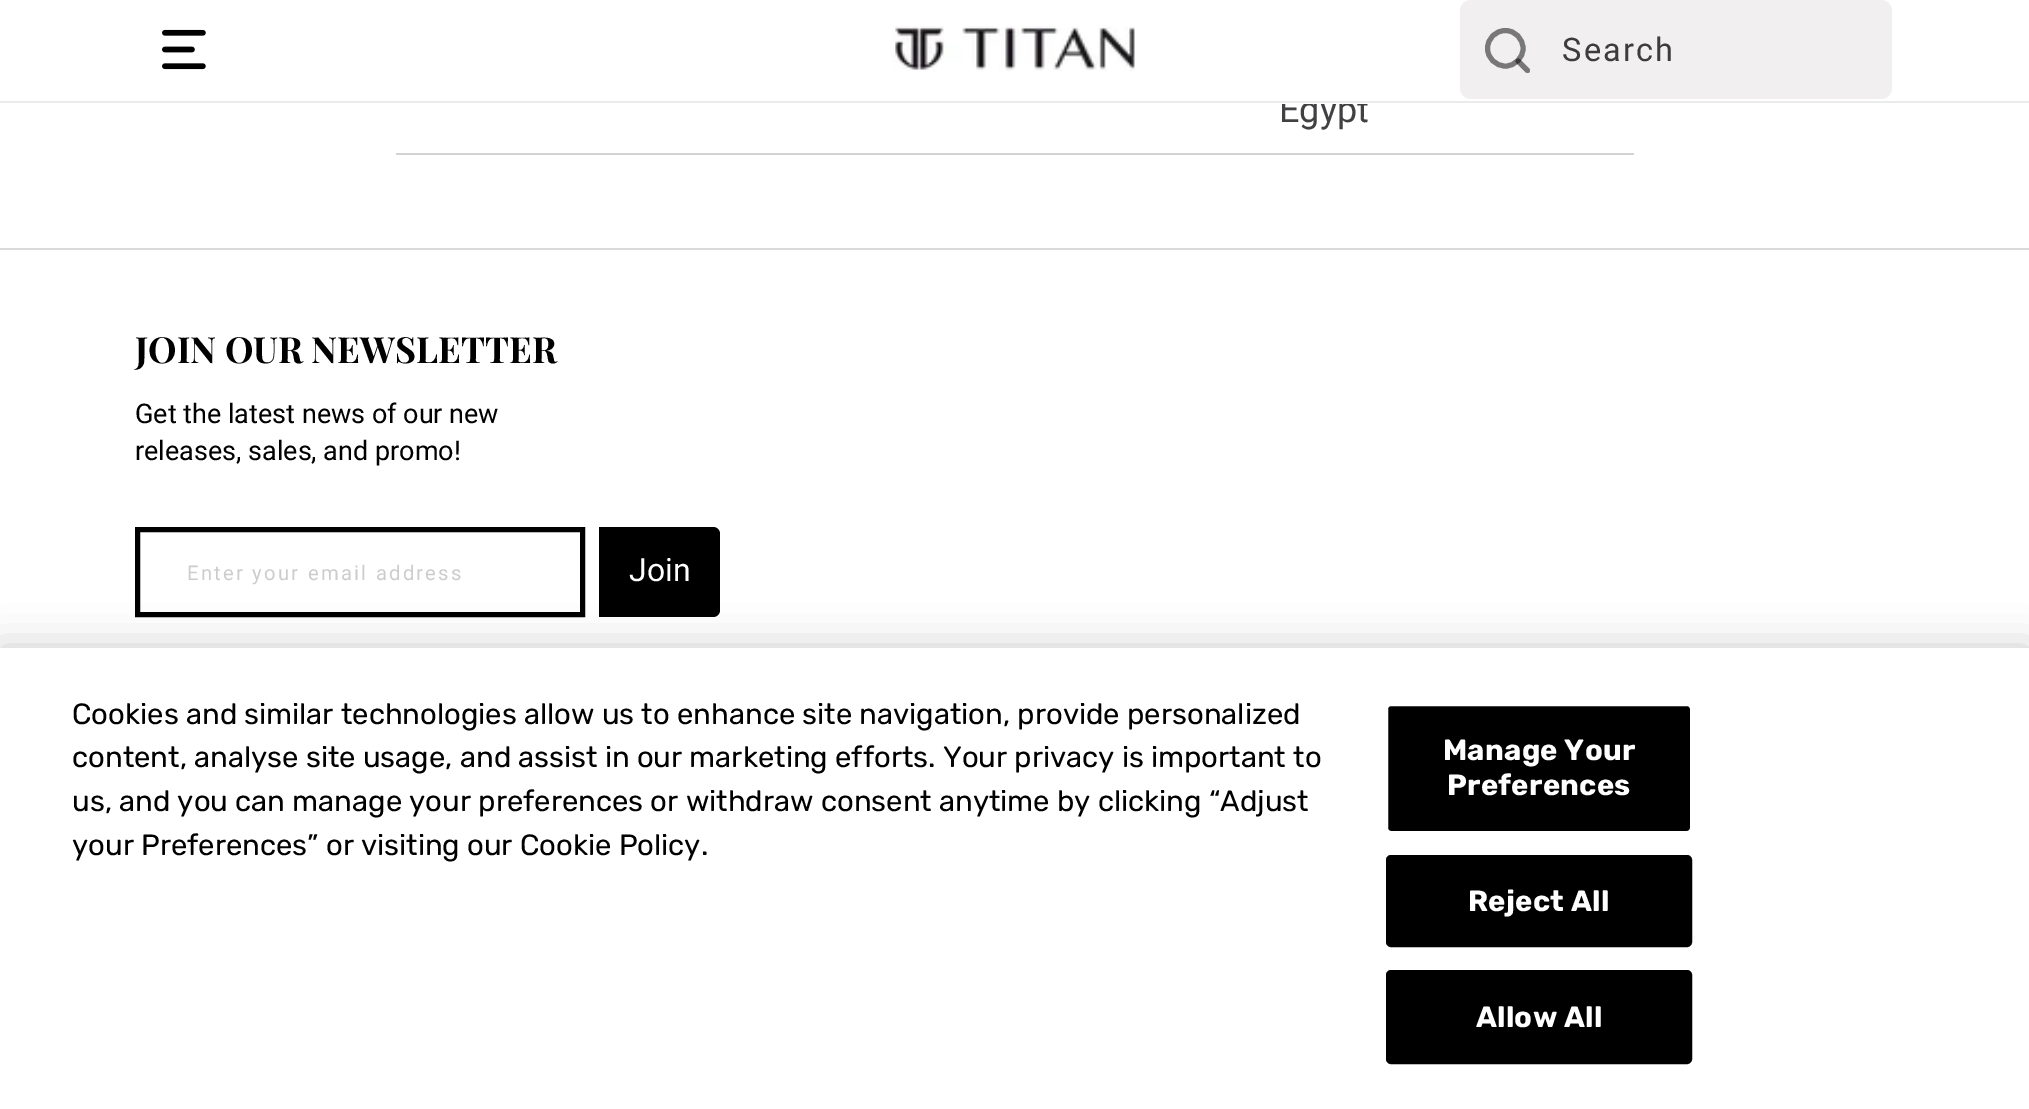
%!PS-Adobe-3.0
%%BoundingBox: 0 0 2029 1109
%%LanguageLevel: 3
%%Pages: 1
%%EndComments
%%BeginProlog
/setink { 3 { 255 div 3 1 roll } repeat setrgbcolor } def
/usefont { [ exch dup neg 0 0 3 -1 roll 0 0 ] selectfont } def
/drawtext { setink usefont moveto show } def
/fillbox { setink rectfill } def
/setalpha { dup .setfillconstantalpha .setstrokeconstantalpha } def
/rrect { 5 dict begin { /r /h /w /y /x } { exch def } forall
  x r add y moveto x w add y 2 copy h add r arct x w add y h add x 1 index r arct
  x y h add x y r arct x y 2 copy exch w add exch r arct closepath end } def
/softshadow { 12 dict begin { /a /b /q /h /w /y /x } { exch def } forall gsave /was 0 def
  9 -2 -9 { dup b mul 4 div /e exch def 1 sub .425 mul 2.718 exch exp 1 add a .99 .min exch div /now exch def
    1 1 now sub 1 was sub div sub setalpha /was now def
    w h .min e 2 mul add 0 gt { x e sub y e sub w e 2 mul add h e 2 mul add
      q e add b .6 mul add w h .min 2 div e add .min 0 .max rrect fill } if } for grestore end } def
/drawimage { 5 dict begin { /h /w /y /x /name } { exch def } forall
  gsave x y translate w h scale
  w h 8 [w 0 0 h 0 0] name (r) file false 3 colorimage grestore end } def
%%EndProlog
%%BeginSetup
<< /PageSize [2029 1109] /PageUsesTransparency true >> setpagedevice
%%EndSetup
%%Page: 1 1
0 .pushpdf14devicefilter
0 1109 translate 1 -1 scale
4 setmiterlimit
0 0 2029 1109 255 255 255 fillbox
(Egypt) 1279 122 /Roboto-Regular 36 65 64 66 drawtext
1282 96 86 8 255 255 255 fillbox
0 101 2029 2 235 235 235 fillbox
(assets/img1.rgb) 162 29 44 41 drawimage
(assets/img2.rgb) 892 26 243 46 drawimage
241 239 239 setink
1460 0 432 99 11 rrect fill
121 120 120 setink
5 setlinewidth
1 setlinecap
1 setlinejoin
1505.5 66 moveto 1515 66 1523 58 1523 48.5 curveto 1523 38.5 1515 30.5 1505.5 30.5 curveto 1495.5 30.5 1487.5 38.5 1487.5 48.5 curveto 1487.5 58 1495.5 66 1505.5 66 curveto closepath stroke
0.5 setalpha
0 0 0 setink
1527.5 70.5 moveto 1518 61 lineto stroke
/Roboto-Regular 32.5 usefont
1 setalpha
60 60 60 setink
1562 61 moveto 2.25 0 (Search) ashow
396 153 1238 2 211 211 211 fillbox
0 248 2029 2 218 218 218 fillbox
(JOIN OUR NEWSLETTER) 135 363 /PlayfairDisplay-Bold 36 0 0 0 drawtext
(Get the latest news of our new) 135 423 /Roboto-Regular 27 0 0 0 drawtext
(releases, sales, and promo!) 135 460 /Roboto-Regular 27 0 0 0 drawtext
0 setlinecap
0 setlinejoin
137.5 529.5 445 85 rectstroke
/Roboto-Regular 20.25 usefont
204 204 204 setink
187 580 moveto 2.25 0 (Enter your email address) ashow
0 0 0 setink
599 527 moveto 713 527 lineto 717 527 720 530 720 534 curveto 720 610 lineto 720 614 717 617 713 617 curveto 599 617 lineto closepath fill
(Join) 629 581 /Roboto-Regular 32 255 255 255 drawtext
0 0 0 setink
0 648 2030 461 0 20 0.2 softshadow
0 648 2029 461 255 255 255 fillbox
(Cookies and similar technologies allow us to enhance site navigation, provide personalized) 72 724 /Rubik-Regular 29.25 0 0 0 drawtext
(content, analyse site usage, and assist in our marketing efforts. Your privacy is important to) 72 767 /Rubik-Regular 29.25 0 0 0 drawtext
(us, and you can manage your preferences or withdraw consent anytime by clicking “Adjust) 72 811 /Rubik-Regular 29.25 0 0 0 drawtext
(your Preferences” or visiting our Cookie Policy.) 72 855 /Rubik-Regular 29.25 0 0 0 drawtext
1387 705 304 127 4 rrect gsave fill grestore
255 255 255 setink
2 setlinewidth
stroke
/Rubik-Bold 29.25 usefont
1443 760 moveto 0.25 0 (Manage Your) ashow
1447 795 moveto 0.25 0 (Preferences) ashow
0 0 0 setink
1387 856 304 90 4 rrect gsave fill grestore
stroke
255 255 255 setink
1468 911 moveto 0.25 0 (Reject All) ashow
0 0 0 setink
1387 971 304 92 4 rrect gsave fill grestore
stroke
255 255 255 setink
1476 1027 moveto 0.25 0 (Allow All) ashow
.poppdf14devicefilter showpage
%%EOF
